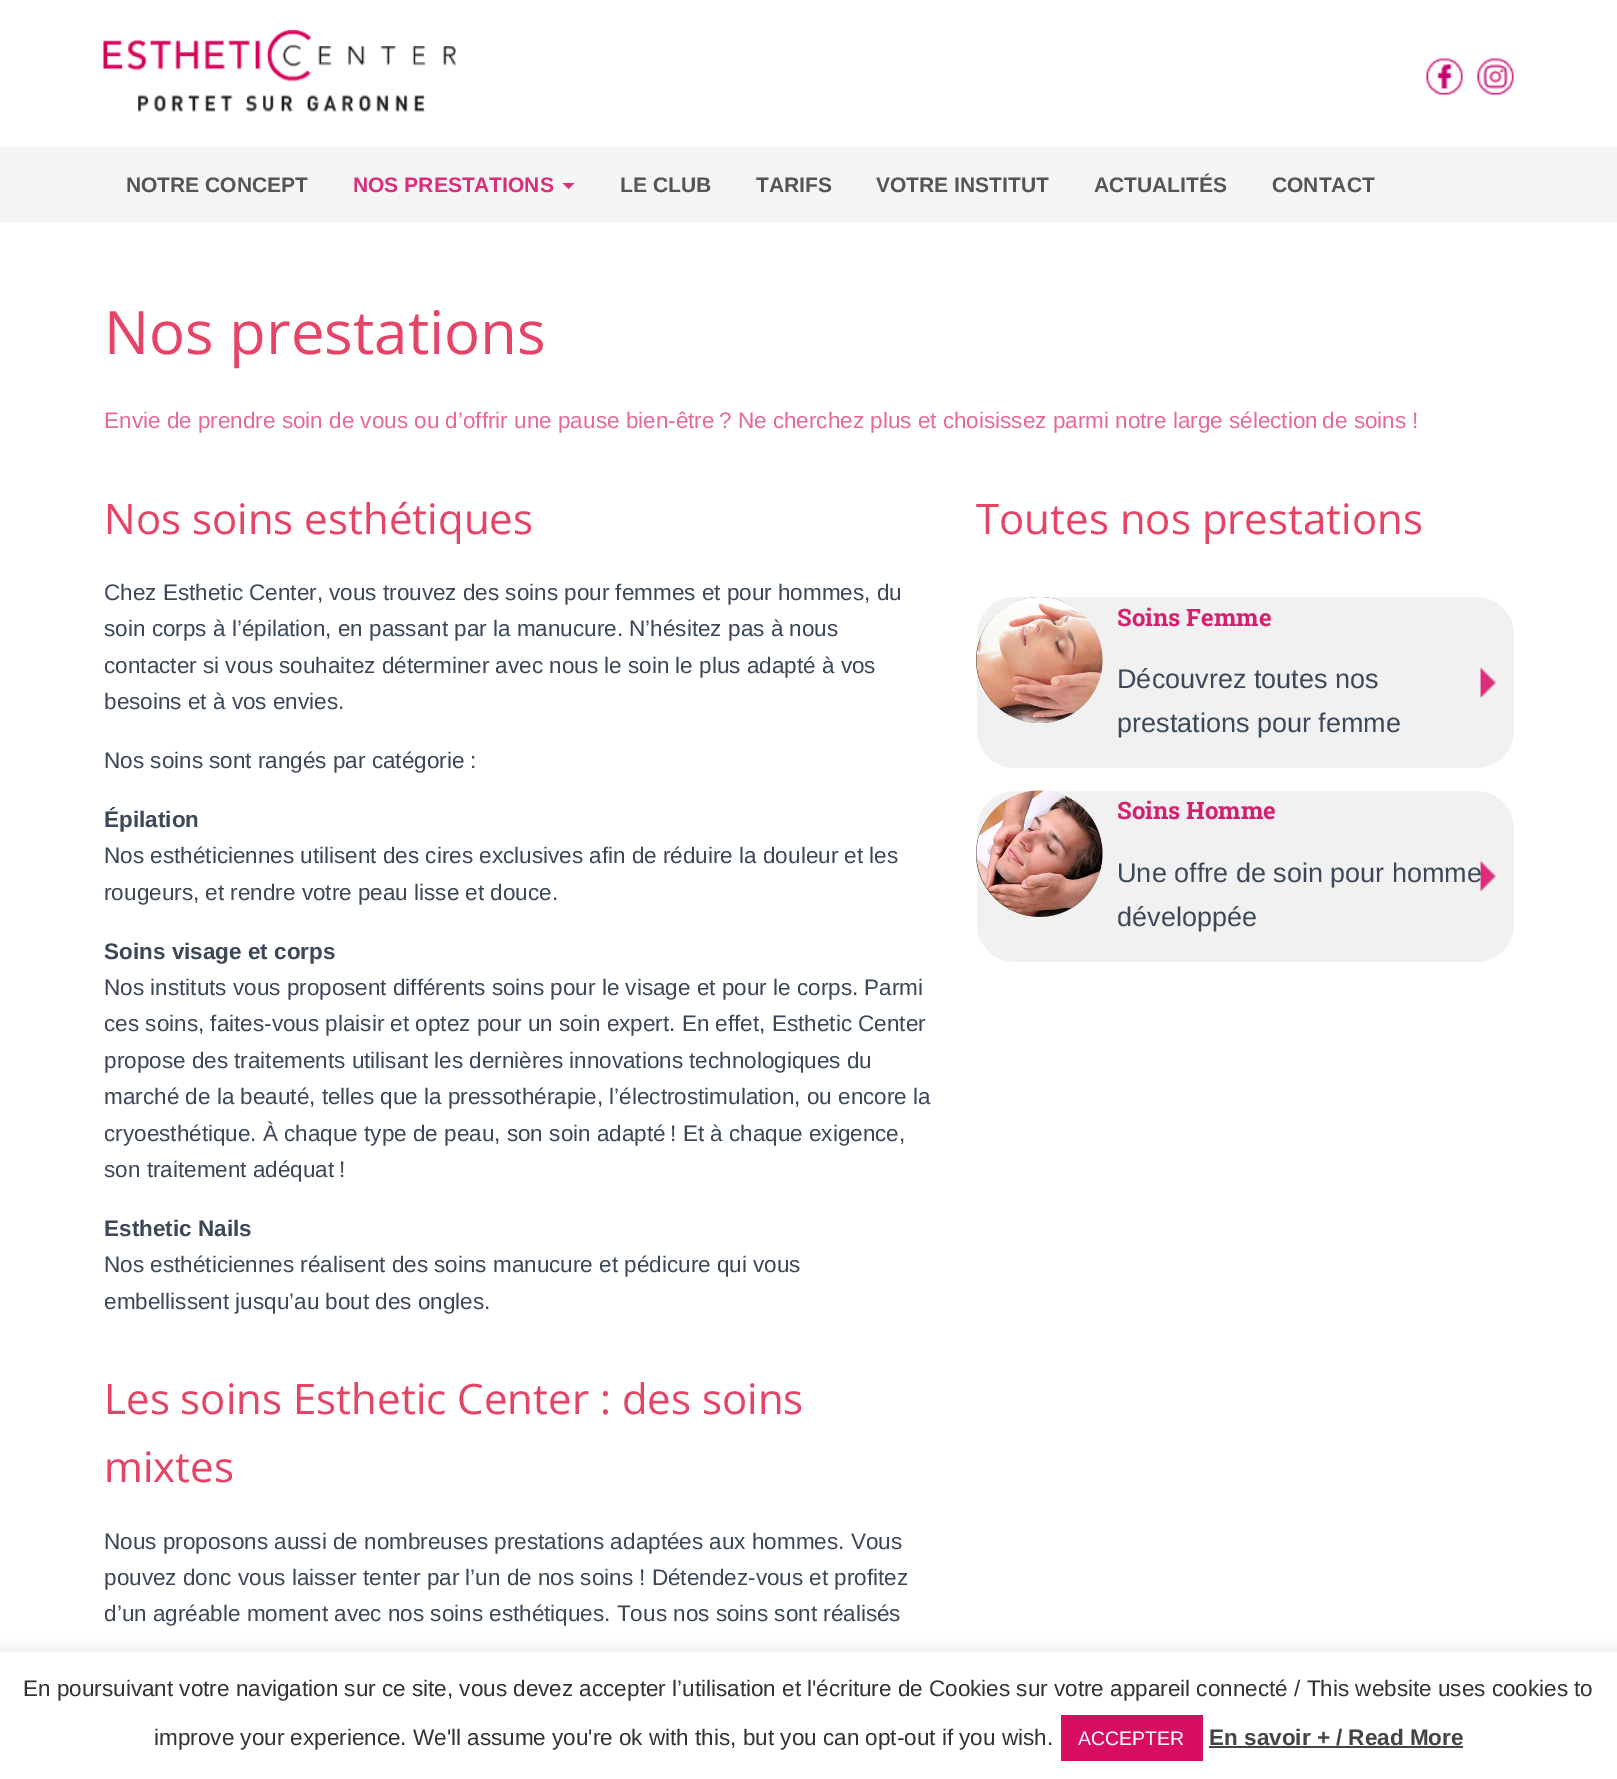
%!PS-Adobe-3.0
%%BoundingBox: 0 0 1617 1779
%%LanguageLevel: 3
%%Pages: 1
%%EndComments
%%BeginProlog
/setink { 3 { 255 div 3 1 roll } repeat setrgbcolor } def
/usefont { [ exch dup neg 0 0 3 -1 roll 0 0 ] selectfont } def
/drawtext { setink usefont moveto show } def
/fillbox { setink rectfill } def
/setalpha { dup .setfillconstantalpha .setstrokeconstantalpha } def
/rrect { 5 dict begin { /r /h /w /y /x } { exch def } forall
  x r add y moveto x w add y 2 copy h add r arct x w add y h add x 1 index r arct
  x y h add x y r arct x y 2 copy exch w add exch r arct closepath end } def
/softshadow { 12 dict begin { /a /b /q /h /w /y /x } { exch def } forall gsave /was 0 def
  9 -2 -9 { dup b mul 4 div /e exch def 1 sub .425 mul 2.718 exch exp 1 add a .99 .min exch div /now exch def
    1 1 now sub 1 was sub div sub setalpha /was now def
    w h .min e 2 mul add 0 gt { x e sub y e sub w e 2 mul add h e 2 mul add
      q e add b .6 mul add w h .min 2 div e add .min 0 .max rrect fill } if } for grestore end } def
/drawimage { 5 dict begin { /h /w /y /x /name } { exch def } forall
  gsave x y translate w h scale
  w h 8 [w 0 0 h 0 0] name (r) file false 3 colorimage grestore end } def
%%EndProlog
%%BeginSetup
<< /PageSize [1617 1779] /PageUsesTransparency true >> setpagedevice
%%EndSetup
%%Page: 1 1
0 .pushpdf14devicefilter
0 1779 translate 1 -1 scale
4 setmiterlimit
0 0 1617 1779 255 255 255 fillbox
0 147 1617 75 245 245 245 fillbox
(assets/img1.rgb) 103 30 353 82 drawimage
(assets/img2.rgb) 1426 58 37 37 drawimage
(assets/img3.rgb) 1477 58 37 37 drawimage
(NOTRE CONCEPT) 126 192 /LiberationSans-Bold 21 85 85 85 drawtext
(NOS PRESTATIONS) 353 192 /LiberationSans-Bold 21 218 46 122 drawtext
562.5 183 moveto 574.5 183 lineto 568.5 189 lineto closepath fill
(LE CLUB) 620 192 /LiberationSans-Bold 21 85 85 85 drawtext
(TARIFS) 756 192 /LiberationSans-Bold 21 85 85 85 drawtext
(VOTRE INSTITUT) 876 192 /LiberationSans-Bold 21 85 85 85 drawtext
(ACTUALITÉS) 1094 192 /LiberationSans-Bold 21 85 85 85 drawtext
(CONTACT) 1272 192 /LiberationSans-Bold 21 85 85 85 drawtext
(Nos prestations) 104 354 /OpenSans-Regular 60 230 68 102 drawtext
(Envie de prendre soin de vous ou d’offrir une pause bien-être ? Ne cherchez plus et choisissez parmi notre large sélection de soins !) 104 428 /LiberationSans-Regular 22.5 231 105 153 drawtext
(Nos soins esthétiques) 104 534 /OpenSans-Regular 42 230 68 102 drawtext
(Chez Esthetic Center, vous trouvez des soins pour femmes et pour hommes, du) 104 600 /LiberationSans-Regular 22.5 60 72 88 drawtext
(soin corps à l’épilation, en passant par la manucure. N’hésitez pas à nous) 104 636 /LiberationSans-Regular 22.5 60 72 88 drawtext
(contacter si vous souhaitez déterminer avec nous le soin le plus adapté à vos) 104 673 /LiberationSans-Regular 22.5 60 72 88 drawtext
(besoins et à vos envies.) 104 709 /LiberationSans-Regular 22.5 60 72 88 drawtext
(Nos soins sont rangés par catégorie :) 104 768 /LiberationSans-Regular 22.5 60 72 88 drawtext
(Épilation) 104 827 /LiberationSans-Bold 22.5 60 72 88 drawtext
(Nos esthéticiennes utilisent des cires exclusives afin de réduire la douleur et les) 104 863 /LiberationSans-Regular 22.5 60 72 88 drawtext
(rougeurs, et rendre votre peau lisse et douce.) 104 900 /LiberationSans-Regular 22.5 60 72 88 drawtext
(Soins visage et corps) 104 959 /LiberationSans-Bold 22.5 60 72 88 drawtext
(Nos instituts vous proposent différents soins pour le visage et pour le corps. Parmi) 104 995 /LiberationSans-Regular 22.5 60 72 88 drawtext
(ces soins, faites-vous plaisir et optez pour un soin expert. En effet, Esthetic Center) 104 1031 /LiberationSans-Regular 22.5 60 72 88 drawtext
(propose des traitements utilisant les dernières innovations technologiques du) 104 1068 /LiberationSans-Regular 22.5 60 72 88 drawtext
(marché de la beauté, telles que la pressothérapie, l’électrostimulation, ou encore la) 104 1104 /LiberationSans-Regular 22.5 60 72 88 drawtext
(cryoesthétique. À chaque type de peau, son soin adapté ! Et à chaque exigence,) 104 1141 /LiberationSans-Regular 22.5 60 72 88 drawtext
(son traitement adéquat !) 104 1177 /LiberationSans-Regular 22.5 60 72 88 drawtext
(Esthetic Nails) 104 1236 /LiberationSans-Bold 22.5 60 72 88 drawtext
(Nos esthéticiennes réalisent des soins manucure et pédicure qui vous) 104 1272 /LiberationSans-Regular 22.5 60 72 88 drawtext
(embellissent jusqu’au bout des ongles.) 104 1309 /LiberationSans-Regular 22.5 60 72 88 drawtext
(Les soins Esthetic Center : des soins) 104 1414 /OpenSans-Regular 42 230 68 102 drawtext
(mixtes) 104 1482 /OpenSans-Regular 42 230 68 102 drawtext
(Nous proposons aussi de nombreuses prestations adaptées aux hommes. Vous) 104 1549 /LiberationSans-Regular 22.5 60 72 88 drawtext
(pouvez donc vous laisser tenter par l’un de nos soins ! Détendez-vous et profitez) 104 1585 /LiberationSans-Regular 22.5 60 72 88 drawtext
(d’un agréable moment avec nos soins esthétiques. Tous nos soins sont réalisés) 104 1621 /LiberationSans-Regular 22.5 60 72 88 drawtext
(Toutes nos prestations) 976 534 /OpenSans-Regular 42 230 68 102 drawtext
241 241 241 setink
977 597 537 171 38 rrect fill
(assets/img4.rgb) 1480 667 16 31 drawimage
64 64 64 setink
1102 660 moveto 1102 695 1074 723 1040 723 curveto 1005 723 976 695 976 660 curveto 976 626 1005 597 1040 597 curveto 1074 597 1102 626 1102 660 curveto closepath fill
(assets/img5.rgb) 976 597 127 126 drawimage
(Soins Femme) 1117 626 /RobotoSlab-Bold 24 215 31 112 drawtext
(Découvrez toutes nos) 1117 688 /LiberationSans-Regular 27 60 72 88 drawtext
(prestations pour femme) 1117 732 /LiberationSans-Regular 27 60 72 88 drawtext
241 241 241 setink
977 791 537 171 38 rrect fill
(assets/img6.rgb) 1480 861 16 30 drawimage
64 64 64 setink
1102 854 moveto 1102 889 1074 917 1040 917 curveto 1005 917 976 889 976 854 curveto 976 819 1005 791 1040 791 curveto 1074 791 1102 819 1102 854 curveto closepath fill
(assets/img7.rgb) 976 790 127 127 drawimage
(Soins Homme) 1117 819 /RobotoSlab-Bold 24 215 31 112 drawtext
(Une offre de soin pour homme) 1117 882 /LiberationSans-Regular 27 60 72 88 drawtext
(développée) 1117 926 /LiberationSans-Regular 27 60 72 88 drawtext
172 171 171 setink
0 1650 1617 128 0 7.5 0.3 softshadow
0 1652 1617 127 255 255 255 fillbox
(En poursuivant votre navigation sur ce site, vous devez accepter l’utilisation et l'écriture de Cookies sur votre appareil connecté / This website uses cookies to) 23 1696 /LiberationSans-Regular 22.5 51 51 51 drawtext
(improve your experience. We'll assume you're ok with this, but you can opt-out if you wish.) 154 1745 /LiberationSans-Regular 22.5 51 51 51 drawtext
1061 1715 142 46 216 14 98 fillbox
(ACCEPTER) 1078 1745 /LiberationSans-Regular 19.5 255 255 255 drawtext
(En savoir + / Read More) 1209 1745 /LiberationSans-Bold 22.5 68 68 68 drawtext
1209 1746 254 2 68 68 68 fillbox
.poppdf14devicefilter showpage
%%EOF
